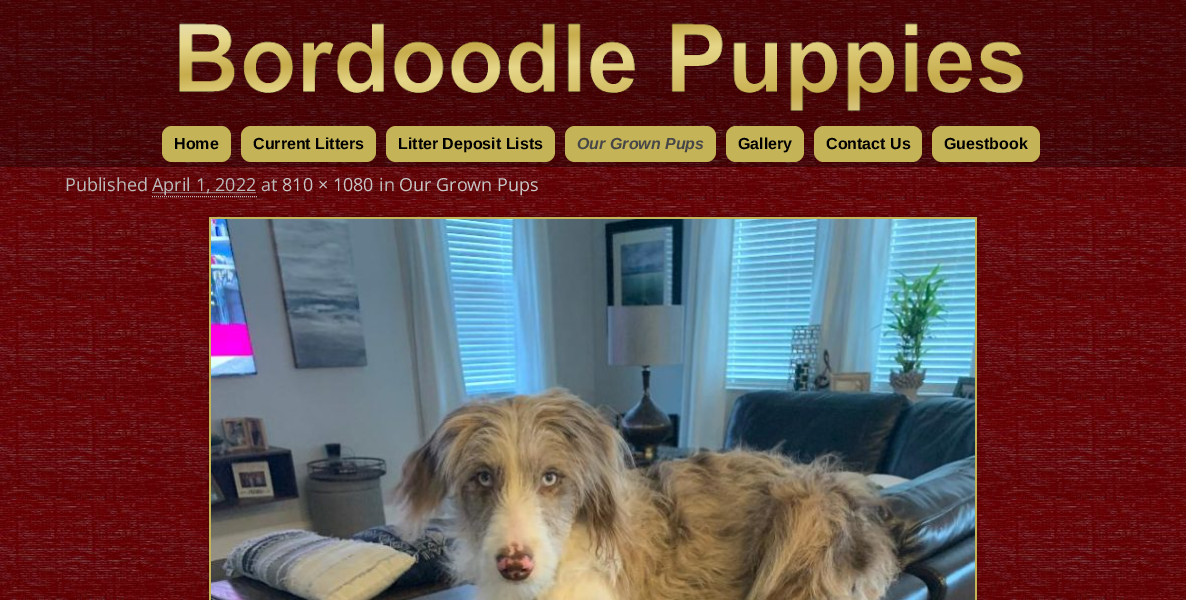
%!PS-Adobe-3.0
%%BoundingBox: 0 0 1186 600
%%LanguageLevel: 3
%%Pages: 1
%%EndComments
%%BeginProlog
/setink { 3 { 255 div 3 1 roll } repeat setrgbcolor } def
/usefont { [ exch dup neg 0 0 3 -1 roll 0 0 ] selectfont } def
/drawtext { setink usefont moveto show } def
/fillbox { setink rectfill } def
/setalpha { dup .setfillconstantalpha .setstrokeconstantalpha } def
/rrect { 5 dict begin { /r /h /w /y /x } { exch def } forall
  x r add y moveto x w add y 2 copy h add r arct x w add y h add x 1 index r arct
  x y h add x y r arct x y 2 copy exch w add exch r arct closepath end } def
/softshadow { 12 dict begin { /a /b /q /h /w /y /x } { exch def } forall gsave /was 0 def
  9 -2 -9 { dup b mul 4 div /e exch def 1 sub .425 mul 2.718 exch exp 1 add a .99 .min exch div /now exch def
    1 1 now sub 1 was sub div sub setalpha /was now def
    w h .min e 2 mul add 0 gt { x e sub y e sub w e 2 mul add h e 2 mul add
      q e add b .6 mul add w h .min 2 div e add .min 0 .max rrect fill } if } for grestore end } def
/drawimage { 5 dict begin { /h /w /y /x /name } { exch def } forall
  gsave x y translate w h scale
  w h 8 [w 0 0 h 0 0] name (r) file false 3 colorimage grestore end } def
%%EndProlog
%%BeginSetup
<< /PageSize [1186 600] /PageUsesTransparency true >> setpagedevice
%%EndSetup
%%Page: 1 1
0 .pushpdf14devicefilter
0 600 translate 1 -1 scale
4 setmiterlimit
0 0 1186 600 255 255 255 fillbox
(assets/img1.rgb) 0 0 1186 600 drawimage
0.3 setalpha
0 0 1186 167 0 0 0 fillbox
1 setalpha
(assets/img2.rgb) 179 23 845 89 drawimage
197 179 88 setink
162 126 69 36 10 rrect fill
(Home) 174 149 /LiberationSans-Bold 16 0 0 0 drawtext
197 179 88 setink
241 126 135 36 10 rrect fill
(Current Litters) 253 149 /LiberationSans-Bold 16 0 0 0 drawtext
197 179 88 setink
386 126 169 36 10 rrect fill
(Litter Deposit Lists) 398 149 /LiberationSans-Bold 16 0 0 0 drawtext
197 179 88 setink
565 126 151 36 10 rrect fill
(Our Grown Pups) 577 149 /LiberationSans-BoldItalic 16 71 71 71 drawtext
197 179 88 setink
726 126 78 36 10 rrect fill
(Gallery) 738 149 /LiberationSans-Bold 16 0 0 0 drawtext
197 179 88 setink
814 126 108 36 10 rrect fill
(Contact Us) 826 149 /LiberationSans-Bold 16 0 0 0 drawtext
197 179 88 setink
932 126 108 36 10 rrect fill
(Guestbook) 944 149 /LiberationSans-Bold 16 0 0 0 drawtext
(Published) 65 191 /OpenSans-Regular 18 187 187 187 drawtext
[1 1] 0 setdash
152.5 192.5 moveto 256.5 192.5 lineto stroke
(April 1, 2022 at) 152 191 /OpenSans-Regular 18 187 187 187 drawtext
152 196.5 moveto 257 196.5 lineto stroke
(810 × 1080) 282 191 /OpenSans-Regular 18 199 199 199 drawtext
(in) 379 191 /OpenSans-Regular 18 187 187 187 drawtext
(Our Grown Pups) 399 191 /OpenSans-Regular 18 199 199 199 drawtext
0 0 0 setink
208 216 770 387 0 1 0.25 softshadow
209 217 768 383 197 179 88 fillbox
(assets/img3.rgb) 211 219 764 381 drawimage
.poppdf14devicefilter showpage
%%EOF
